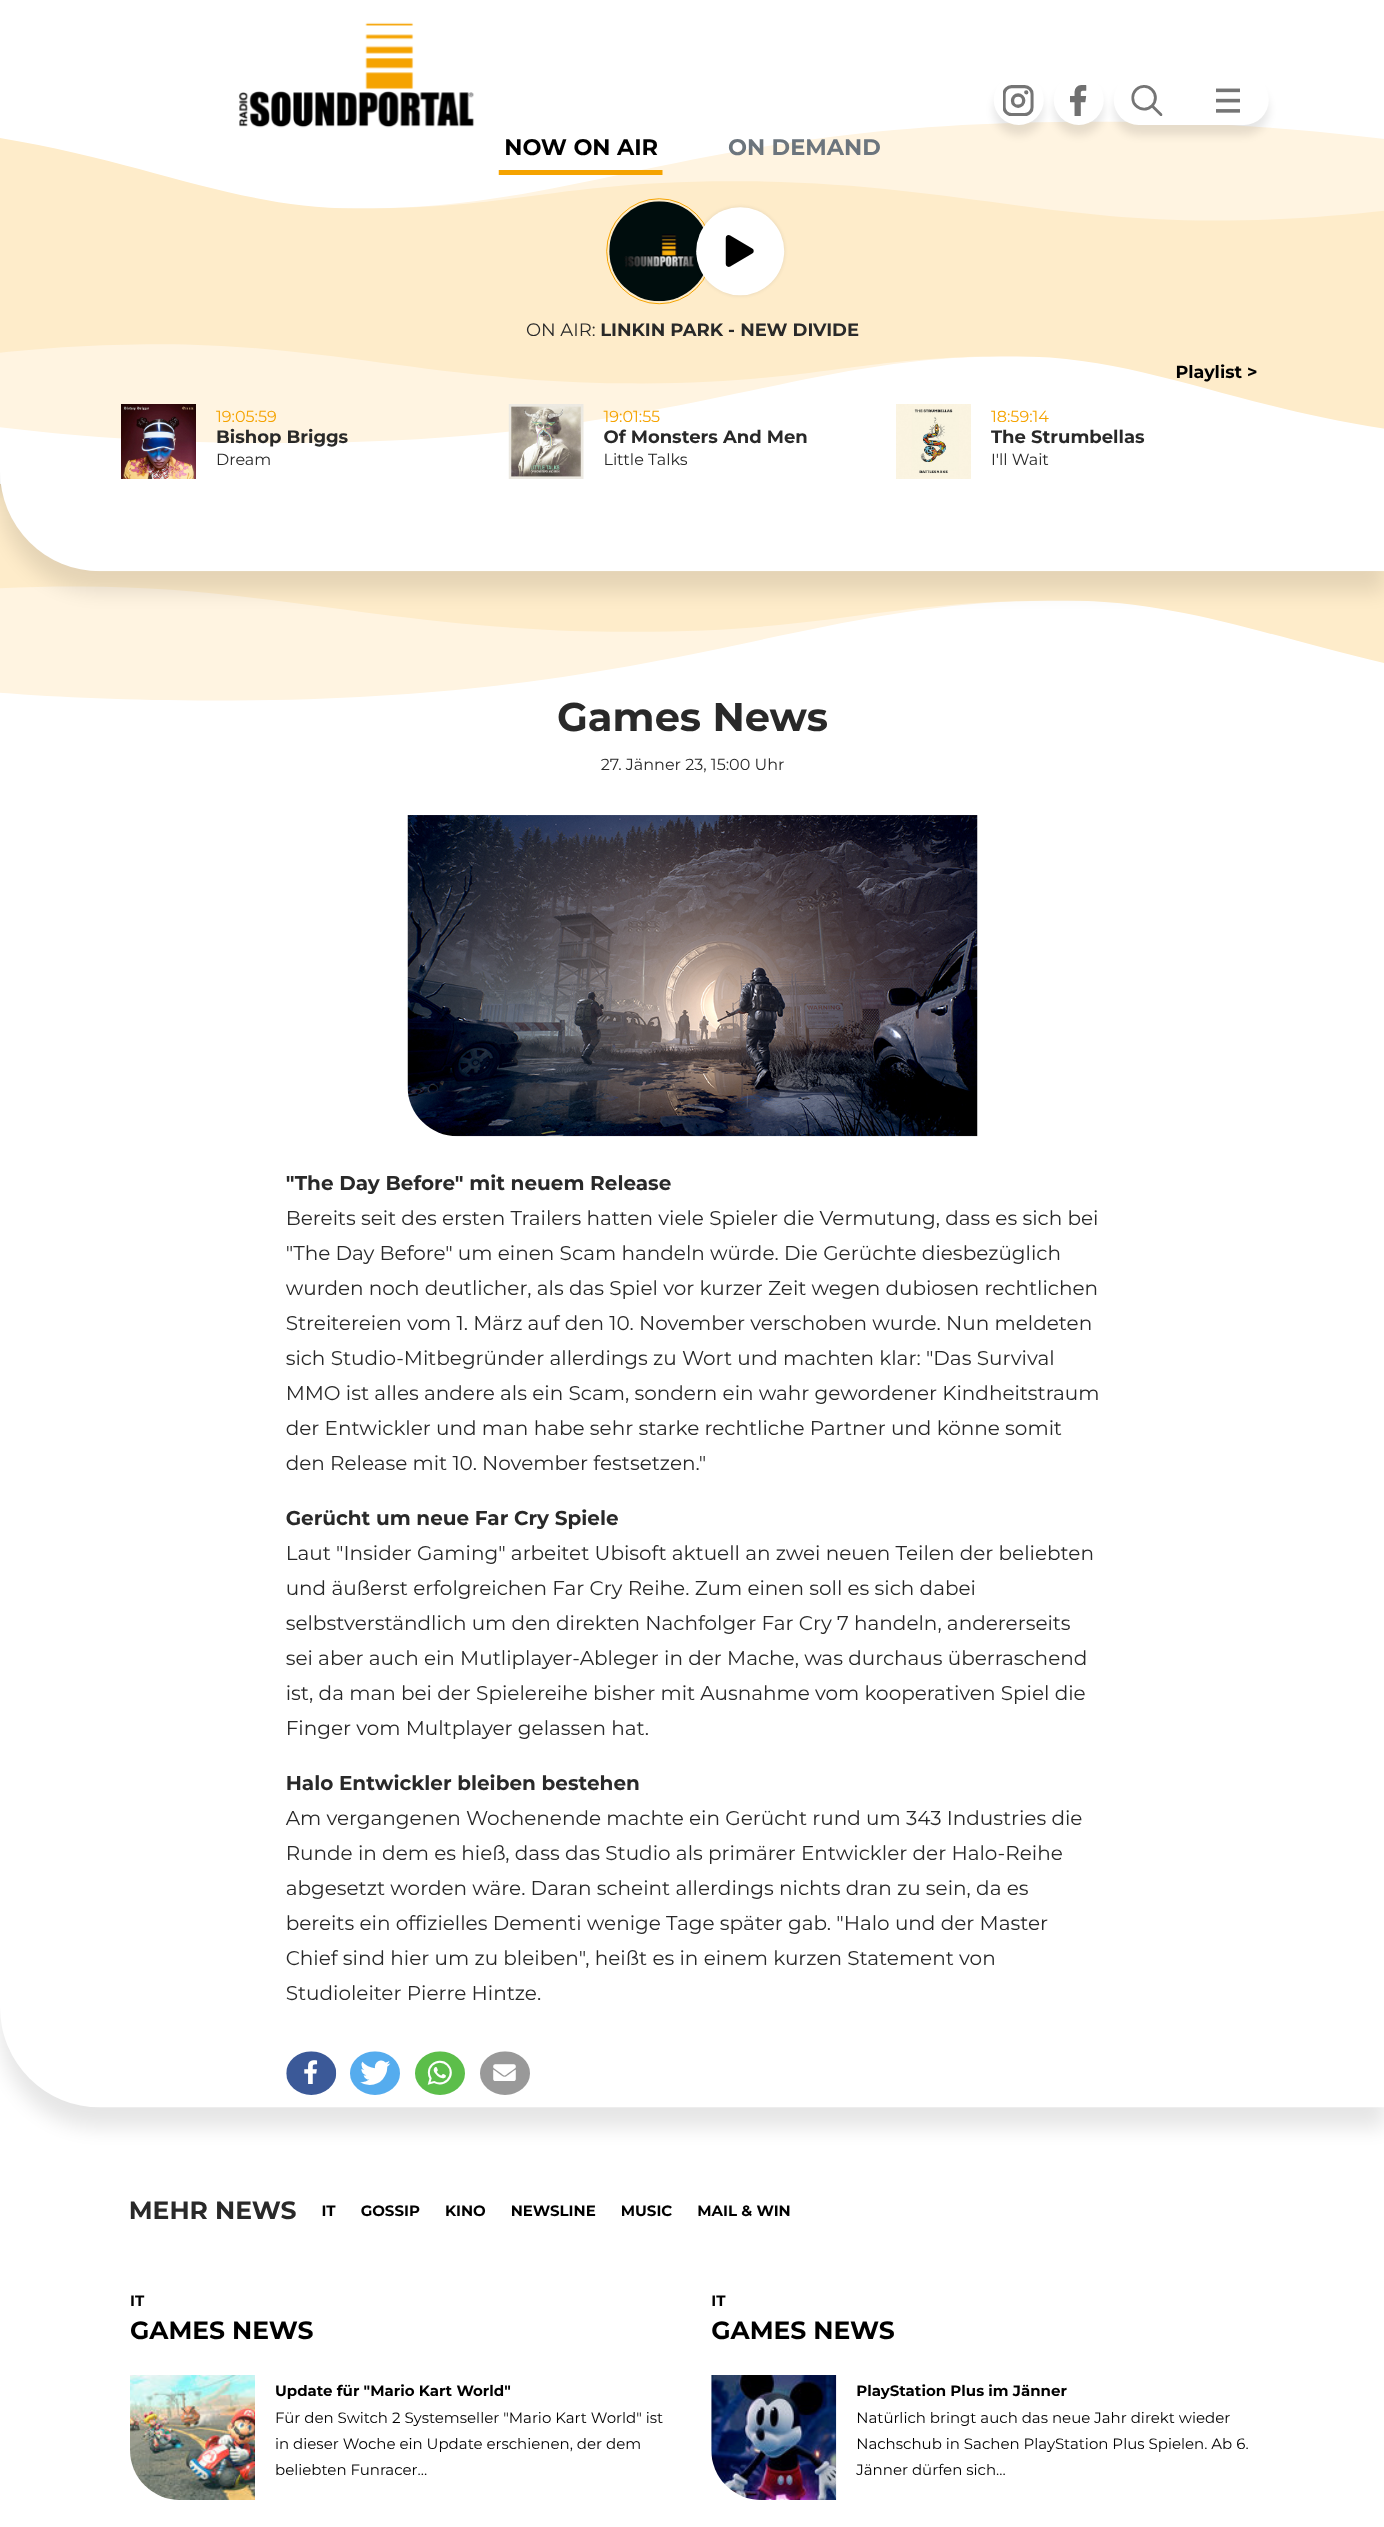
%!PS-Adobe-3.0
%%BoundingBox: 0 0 1384 2527
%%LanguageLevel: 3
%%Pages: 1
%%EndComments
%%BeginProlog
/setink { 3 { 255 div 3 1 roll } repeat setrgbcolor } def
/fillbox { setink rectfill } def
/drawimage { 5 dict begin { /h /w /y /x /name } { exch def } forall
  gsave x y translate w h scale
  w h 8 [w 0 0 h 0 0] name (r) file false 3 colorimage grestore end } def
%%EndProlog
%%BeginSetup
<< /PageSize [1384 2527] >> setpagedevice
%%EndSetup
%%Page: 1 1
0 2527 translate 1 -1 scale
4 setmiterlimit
0 0 1384 2527 255 255 255 fillbox
(assets/img1.rgb) 0 22 1384 2478 drawimage
showpage
%%EOF
